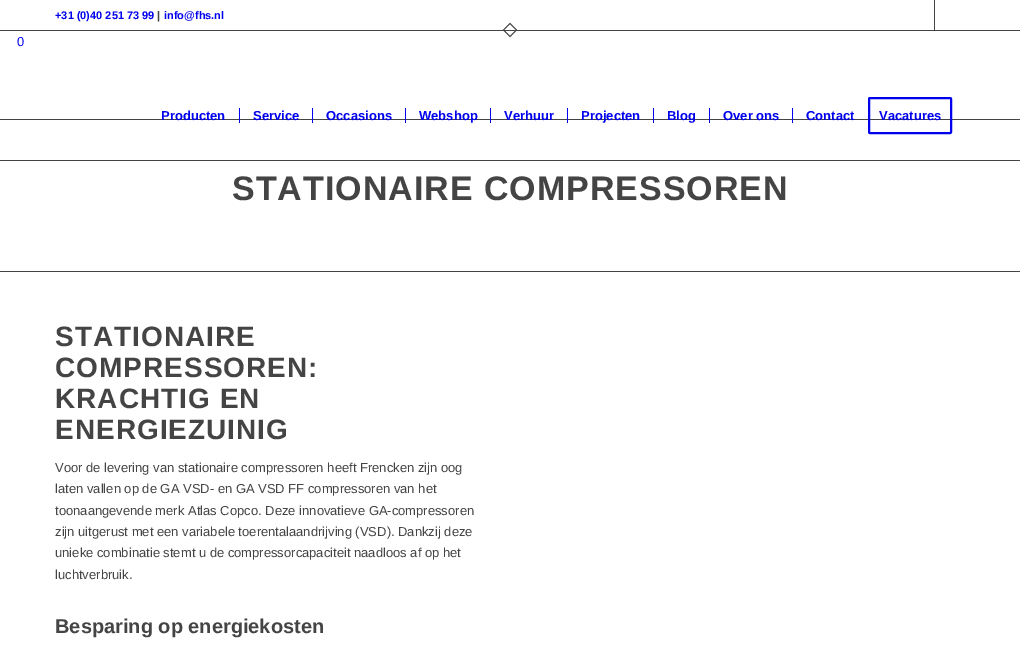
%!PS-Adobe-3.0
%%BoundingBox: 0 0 1020 646
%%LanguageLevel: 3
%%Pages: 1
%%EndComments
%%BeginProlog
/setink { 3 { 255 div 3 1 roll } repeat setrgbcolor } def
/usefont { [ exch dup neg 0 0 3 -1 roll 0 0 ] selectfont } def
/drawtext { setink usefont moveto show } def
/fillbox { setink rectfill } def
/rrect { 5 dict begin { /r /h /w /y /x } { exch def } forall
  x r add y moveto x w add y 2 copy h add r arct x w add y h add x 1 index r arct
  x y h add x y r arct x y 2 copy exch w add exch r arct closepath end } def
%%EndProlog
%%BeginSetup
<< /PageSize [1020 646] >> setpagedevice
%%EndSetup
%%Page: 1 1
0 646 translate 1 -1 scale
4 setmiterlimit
0 0 1020 646 255 255 255 fillbox
(+31 \(0\)40 251 73 99) 55 19 /LiberationSans-Bold 11 0 0 238 drawtext
(|) 157 19 /LiberationSans-Bold 11 68 68 68 drawtext
(info@fhs.nl) 164 19 /LiberationSans-Bold 11 0 0 238 drawtext
934 0 1 30 68 68 68 fillbox
0 30 1020 1 68 68 68 fillbox
0 160 1020 1 68 68 68 fillbox
510 23.5 moveto 516.5 30 lineto 510 36.5 lineto 503.5 30 lineto closepath stroke
(0) 17 46 /LiberationSans-Regular 13 0 0 238 drawtext
0 119 1020 1 68 68 68 fillbox
(Producten) 161 120 /LiberationSans-Bold 13 0 0 238 drawtext
(Service) 253 120 /LiberationSans-Bold 13 0 0 238 drawtext
239 108 1 15 0 0 238 fillbox
(Occasions) 326 120 /LiberationSans-Bold 13 0 0 238 drawtext
312 108 1 15 0 0 238 fillbox
(Webshop) 419 120 /LiberationSans-Bold 13 0 0 238 drawtext
405 108 1 15 0 0 238 fillbox
(Verhuur) 504 120 /LiberationSans-Bold 13 0 0 238 drawtext
490 108 1 15 0 0 238 fillbox
(Projecten) 581 120 /LiberationSans-Bold 13 0 0 238 drawtext
567 108 1 15 0 0 238 fillbox
(Blog) 667 120 /LiberationSans-Bold 13 0 0 238 drawtext
653 108 1 15 0 0 238 fillbox
(Over ons) 723 120 /LiberationSans-Bold 13 0 0 238 drawtext
709 108 1 15 0 0 238 fillbox
(Contact) 806 120 /LiberationSans-Bold 13 0 0 238 drawtext
792 108 1 15 0 0 238 fillbox
2 setlinewidth
869 98 82 35 1 rrect stroke
(Vacatures) 879 120 /LiberationSans-Bold 13 0 0 238 drawtext
/LiberationSans-Bold 34 usefont
68 68 68 setink
232 200 moveto 1 0 (STATIONAIRE COMPRESSOREN) ashow
0 271 1020 1 68 68 68 fillbox
/LiberationSans-Bold 28 usefont
55 346 moveto 1 0 (STATIONAIRE) ashow
55 377 moveto 1 0 (COMPRESSOREN:) ashow
55 408 moveto 1 0 (KRACHTIG EN) ashow
55 439 moveto 1 0 (ENERGIEZUINIG) ashow
(Voor de levering van stationaire compressoren heeft Frencken zijn oog) 55 472 /LiberationSans-Regular 13 68 68 68 drawtext
(laten vallen op de GA VSD- en GA VSD FF compressoren van het) 55 493 /LiberationSans-Regular 13 68 68 68 drawtext
(toonaangevende merk Atlas Copco. Deze innovatieve GA-compressoren) 55 515 /LiberationSans-Regular 13 68 68 68 drawtext
(zijn uitgerust met een variabele toerentalaandrijving \(VSD\). Dankzij deze) 55 536 /LiberationSans-Regular 13 68 68 68 drawtext
(unieke combinatie stemt u de compressorcapaciteit naadloos af op het) 55 557 /LiberationSans-Regular 13 68 68 68 drawtext
(luchtverbruik.) 55 579 /LiberationSans-Regular 13 68 68 68 drawtext
(Besparing op energiekosten) 55 633 /LiberationSans-Bold 20 68 68 68 drawtext
showpage
%%EOF
